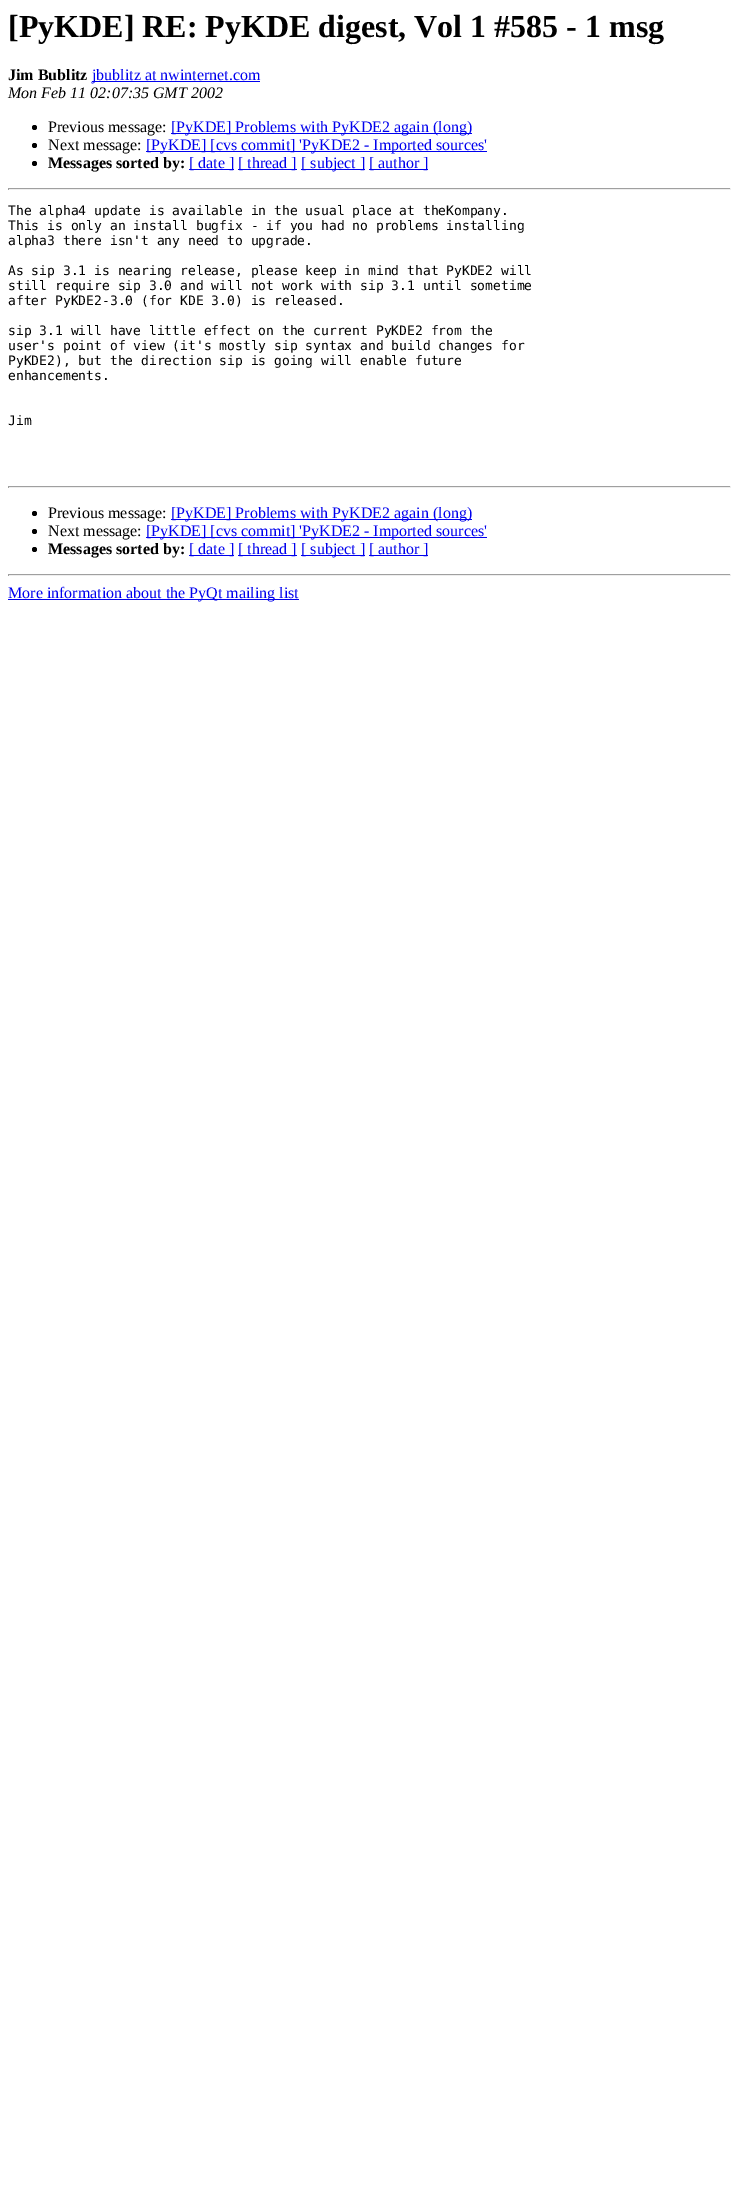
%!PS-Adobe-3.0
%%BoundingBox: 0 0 739 2194
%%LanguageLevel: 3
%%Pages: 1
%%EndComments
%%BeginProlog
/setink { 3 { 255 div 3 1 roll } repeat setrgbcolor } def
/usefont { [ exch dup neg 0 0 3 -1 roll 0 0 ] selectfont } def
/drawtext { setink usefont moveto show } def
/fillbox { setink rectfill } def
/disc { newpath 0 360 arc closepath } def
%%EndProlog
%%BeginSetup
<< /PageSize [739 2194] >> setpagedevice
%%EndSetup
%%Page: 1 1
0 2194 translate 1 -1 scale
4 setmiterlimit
0 0 739 2194 255 255 255 fillbox
([PyKDE] RE: PyKDE digest, Vol 1 #585 - 1 msg) 8 37 /LiberationSerif-Bold 32 0 0 0 drawtext
(Jim Bublitz) 8 80 /LiberationSerif-Bold 16 0 0 0 drawtext
92 81 168 1 0 0 238 fillbox
(jbublitz at nwinternet.com) 92 80 /LiberationSerif-Regular 16 0 0 238 drawtext
(Mon Feb 11 02:07:35 GMT 2002) 8 98 /LiberationSerif-Italic 16 0 0 0 drawtext
34.5 127.5 2.5 disc fill
(Previous message:) 48 132 /LiberationSerif-Regular 16 0 0 0 drawtext
171 133 301 1 0 0 238 fillbox
([PyKDE] Problems with PyKDE2 again \(long\)) 171 132 /LiberationSerif-Regular 16 0 0 238 drawtext
0 0 0 setink
34.5 145.5 2.5 disc fill
(Next message:) 48 150 /LiberationSerif-Regular 16 0 0 0 drawtext
146 151 341 1 0 0 238 fillbox
([PyKDE] [cvs commit] 'PyKDE2 - Imported sources') 146 150 /LiberationSerif-Regular 16 0 0 238 drawtext
0 0 0 setink
34.5 163.5 2.5 disc fill
(Messages sorted by:) 48 168 /LiberationSerif-Bold 16 0 0 0 drawtext
189 169 45 1 0 0 238 fillbox
([ date ]) 189 168 /LiberationSerif-Regular 16 0 0 238 drawtext
238 169 59 1 0 0 238 fillbox
([ thread ]) 238 168 /LiberationSerif-Regular 16 0 0 238 drawtext
301 169 64 1 0 0 238 fillbox
([ subject ]) 301 168 /LiberationSerif-Regular 16 0 0 238 drawtext
369 169 59 1 0 0 238 fillbox
([ author ]) 369 168 /LiberationSerif-Regular 16 0 0 238 drawtext
8 188 723 1 159 159 159 fillbox
730 188 1 2 238 238 238 fillbox
8 189 723 1 238 238 238 fillbox
8 188 1 2 159 159 159 fillbox
(The alpha4 update is available in the usual place at theKompany.) 8 215 /DejaVuSansMono-Regular 13 0 0 0 drawtext
(This is only an install bugfix - if you had no problems installing) 8 230 /DejaVuSansMono-Regular 13 0 0 0 drawtext
(alpha3 there isn't any need to upgrade.) 8 245 /DejaVuSansMono-Regular 13 0 0 0 drawtext
(As sip 3.1 is nearing release, please keep in mind that PyKDE2 will) 8 275 /DejaVuSansMono-Regular 13 0 0 0 drawtext
(still require sip 3.0 and will not work with sip 3.1 until sometime) 8 290 /DejaVuSansMono-Regular 13 0 0 0 drawtext
(after PyKDE2-3.0 \(for KDE 3.0\) is released.) 8 305 /DejaVuSansMono-Regular 13 0 0 0 drawtext
(sip 3.1 will have little effect on the current PyKDE2 from the) 8 335 /DejaVuSansMono-Regular 13 0 0 0 drawtext
(user's point of view \(it's mostly sip syntax and build changes for) 8 350 /DejaVuSansMono-Regular 13 0 0 0 drawtext
(PyKDE2\), but the direction sip is going will enable future) 8 365 /DejaVuSansMono-Regular 13 0 0 0 drawtext
(enhancements.) 8 380 /DejaVuSansMono-Regular 13 0 0 0 drawtext
(Jim) 8 425 /DejaVuSansMono-Regular 13 0 0 0 drawtext
8 486 723 1 159 159 159 fillbox
730 486 1 2 238 238 238 fillbox
8 487 723 1 238 238 238 fillbox
8 486 1 2 159 159 159 fillbox
0 0 0 setink
34.5 513.5 2.5 disc fill
(Previous message:) 48 518 /LiberationSerif-Regular 16 0 0 0 drawtext
171 519 301 1 0 0 238 fillbox
([PyKDE] Problems with PyKDE2 again \(long\)) 171 518 /LiberationSerif-Regular 16 0 0 238 drawtext
0 0 0 setink
34.5 531.5 2.5 disc fill
(Next message:) 48 536 /LiberationSerif-Regular 16 0 0 0 drawtext
146 537 341 1 0 0 238 fillbox
([PyKDE] [cvs commit] 'PyKDE2 - Imported sources') 146 536 /LiberationSerif-Regular 16 0 0 238 drawtext
0 0 0 setink
34.5 549.5 2.5 disc fill
(Messages sorted by:) 48 554 /LiberationSerif-Bold 16 0 0 0 drawtext
189 555 45 1 0 0 238 fillbox
([ date ]) 189 554 /LiberationSerif-Regular 16 0 0 238 drawtext
238 555 59 1 0 0 238 fillbox
([ thread ]) 238 554 /LiberationSerif-Regular 16 0 0 238 drawtext
301 555 64 1 0 0 238 fillbox
([ subject ]) 301 554 /LiberationSerif-Regular 16 0 0 238 drawtext
369 555 59 1 0 0 238 fillbox
([ author ]) 369 554 /LiberationSerif-Regular 16 0 0 238 drawtext
8 574 723 1 159 159 159 fillbox
730 574 1 2 238 238 238 fillbox
8 575 723 1 238 238 238 fillbox
8 574 1 2 159 159 159 fillbox
8 599 291 1 0 0 238 fillbox
(More information about the PyQt mailing list) 8 598 /LiberationSerif-Regular 16 0 0 238 drawtext
showpage
%%EOF
